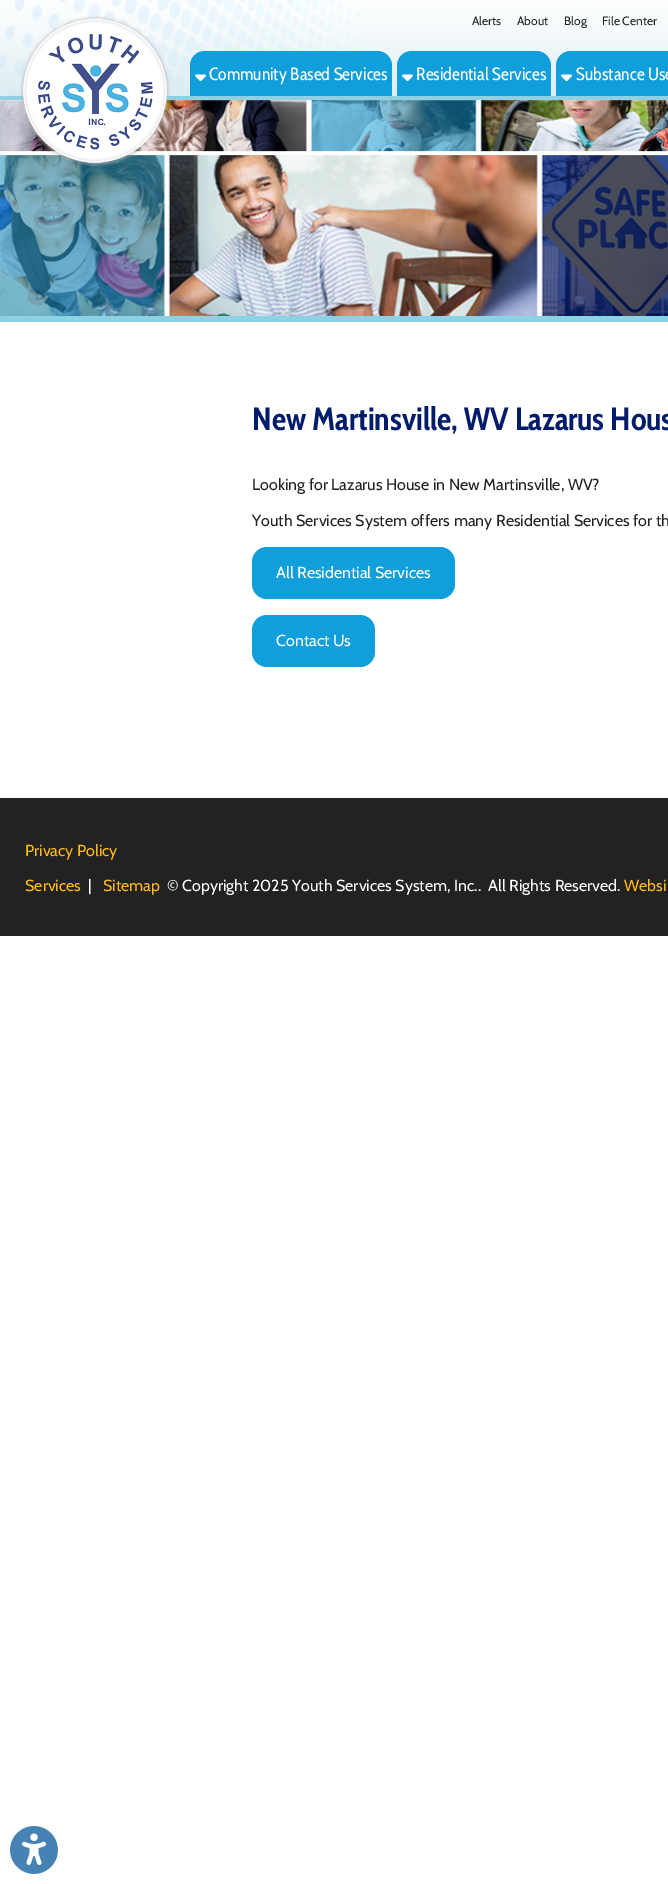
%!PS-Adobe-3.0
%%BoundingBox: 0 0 668 1884
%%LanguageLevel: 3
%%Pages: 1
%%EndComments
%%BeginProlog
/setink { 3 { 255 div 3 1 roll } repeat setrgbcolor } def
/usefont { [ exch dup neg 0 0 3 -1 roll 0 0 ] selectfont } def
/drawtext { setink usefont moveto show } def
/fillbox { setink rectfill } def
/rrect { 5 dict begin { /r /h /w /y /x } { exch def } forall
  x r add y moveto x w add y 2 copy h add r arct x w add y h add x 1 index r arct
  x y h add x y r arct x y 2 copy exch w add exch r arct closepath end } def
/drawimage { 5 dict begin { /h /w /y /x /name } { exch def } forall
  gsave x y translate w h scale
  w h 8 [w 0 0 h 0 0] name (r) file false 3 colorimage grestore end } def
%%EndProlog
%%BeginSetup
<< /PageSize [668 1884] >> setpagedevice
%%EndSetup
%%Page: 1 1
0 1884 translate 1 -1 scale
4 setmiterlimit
0 0 668 1884 255 255 255 fillbox
(assets/img4.rgb) 0 100 668 216 drawimage
(assets/img1.rgb) 0 0 668 101 drawimage
0 96 668 4 142 209 229 fillbox
(assets/img2.rgb) 20 16 150 150 drawimage
(Alerts) 472 25 /Cabin-Regular 12 34 34 34 drawtext
(About) 517 25 /Cabin-Regular 12 34 34 34 drawtext
(Blog) 564 25 /Cabin-Regular 12 34 34 34 drawtext
(File Center) 602 25 /Cabin-Regular 12 34 34 34 drawtext
17 159 220 setink
205 51 moveto 377 51 lineto 385.5 51 392 57.5 392 66 curveto 392 96 lineto 190 96 lineto 190 66 lineto 190 57.5 196.5 51 205 51 curveto closepath fill
(assets/img3.rgb) 195 74 11 8 drawimage
(Community Based Services) 209 80 /CabinCondensed-Regular 17.75 255 255 255 drawtext
17 159 220 setink
412 51 moveto 536 51 lineto 544.5 51 551 57.5 551 66 curveto 551 96 lineto 397 96 lineto 397 66 lineto 397 57.5 403.5 51 412 51 curveto closepath fill
(assets/img3.rgb) 402 74 11 8 drawimage
(Residential Services) 416 80 /CabinCondensed-Regular 17.75 255 255 255 drawtext
17 159 220 setink
571 51 moveto 668 51 lineto 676.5 51 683 57.5 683 66 curveto 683 96 lineto 556 96 lineto 556 66 lineto 556 57.5 562.5 51 571 51 curveto closepath fill
(assets/img3.rgb) 561 74 11 8 drawimage
(Substance Use) 576 80 /CabinCondensed-Regular 17.75 255 255 255 drawtext
0 316 668 6 142 209 229 fillbox
(New Martinsville, WV Lazarus Hous) 252 430 /CabinCondensed-Bold 32 1 28 106 drawtext
(Looking for Lazarus House in New Martinsville, WV?) 252 490 /Cabin-Regular 16 34 34 34 drawtext
(Youth Services System offers many Residential Services for th) 252 526 /Cabin-Regular 16 34 34 34 drawtext
17 159 220 setink
252 547 203 52 15 rrect fill
(All Residential Services) 276 578 /Cabin-Regular 16 255 255 255 drawtext
17 159 220 setink
252 615 123 52 15 rrect fill
(Contact Us) 276 646 /Cabin-Regular 16 255 255 255 drawtext
0 798 668 138 34 34 34 fillbox
(Privacy Policy) 25 856 /Cabin-Regular 16 255 187 23 drawtext
(Services) 25 891 /Cabin-Regular 16 255 187 23 drawtext
(|) 88 891 /Cabin-Regular 16 255 255 255 drawtext
(Sitemap) 103 891 /Cabin-Regular 16 255 187 23 drawtext
(© Copyright 2025 Youth Services System, Inc..  All Rights Reserved.) 167 891 /Cabin-Regular 16 255 255 255 drawtext
(Websi) 624 891 /Cabin-Regular 16 255 187 23 drawtext
(assets/img5.rgb) 10 1826 48 48 drawimage
showpage
%%EOF
